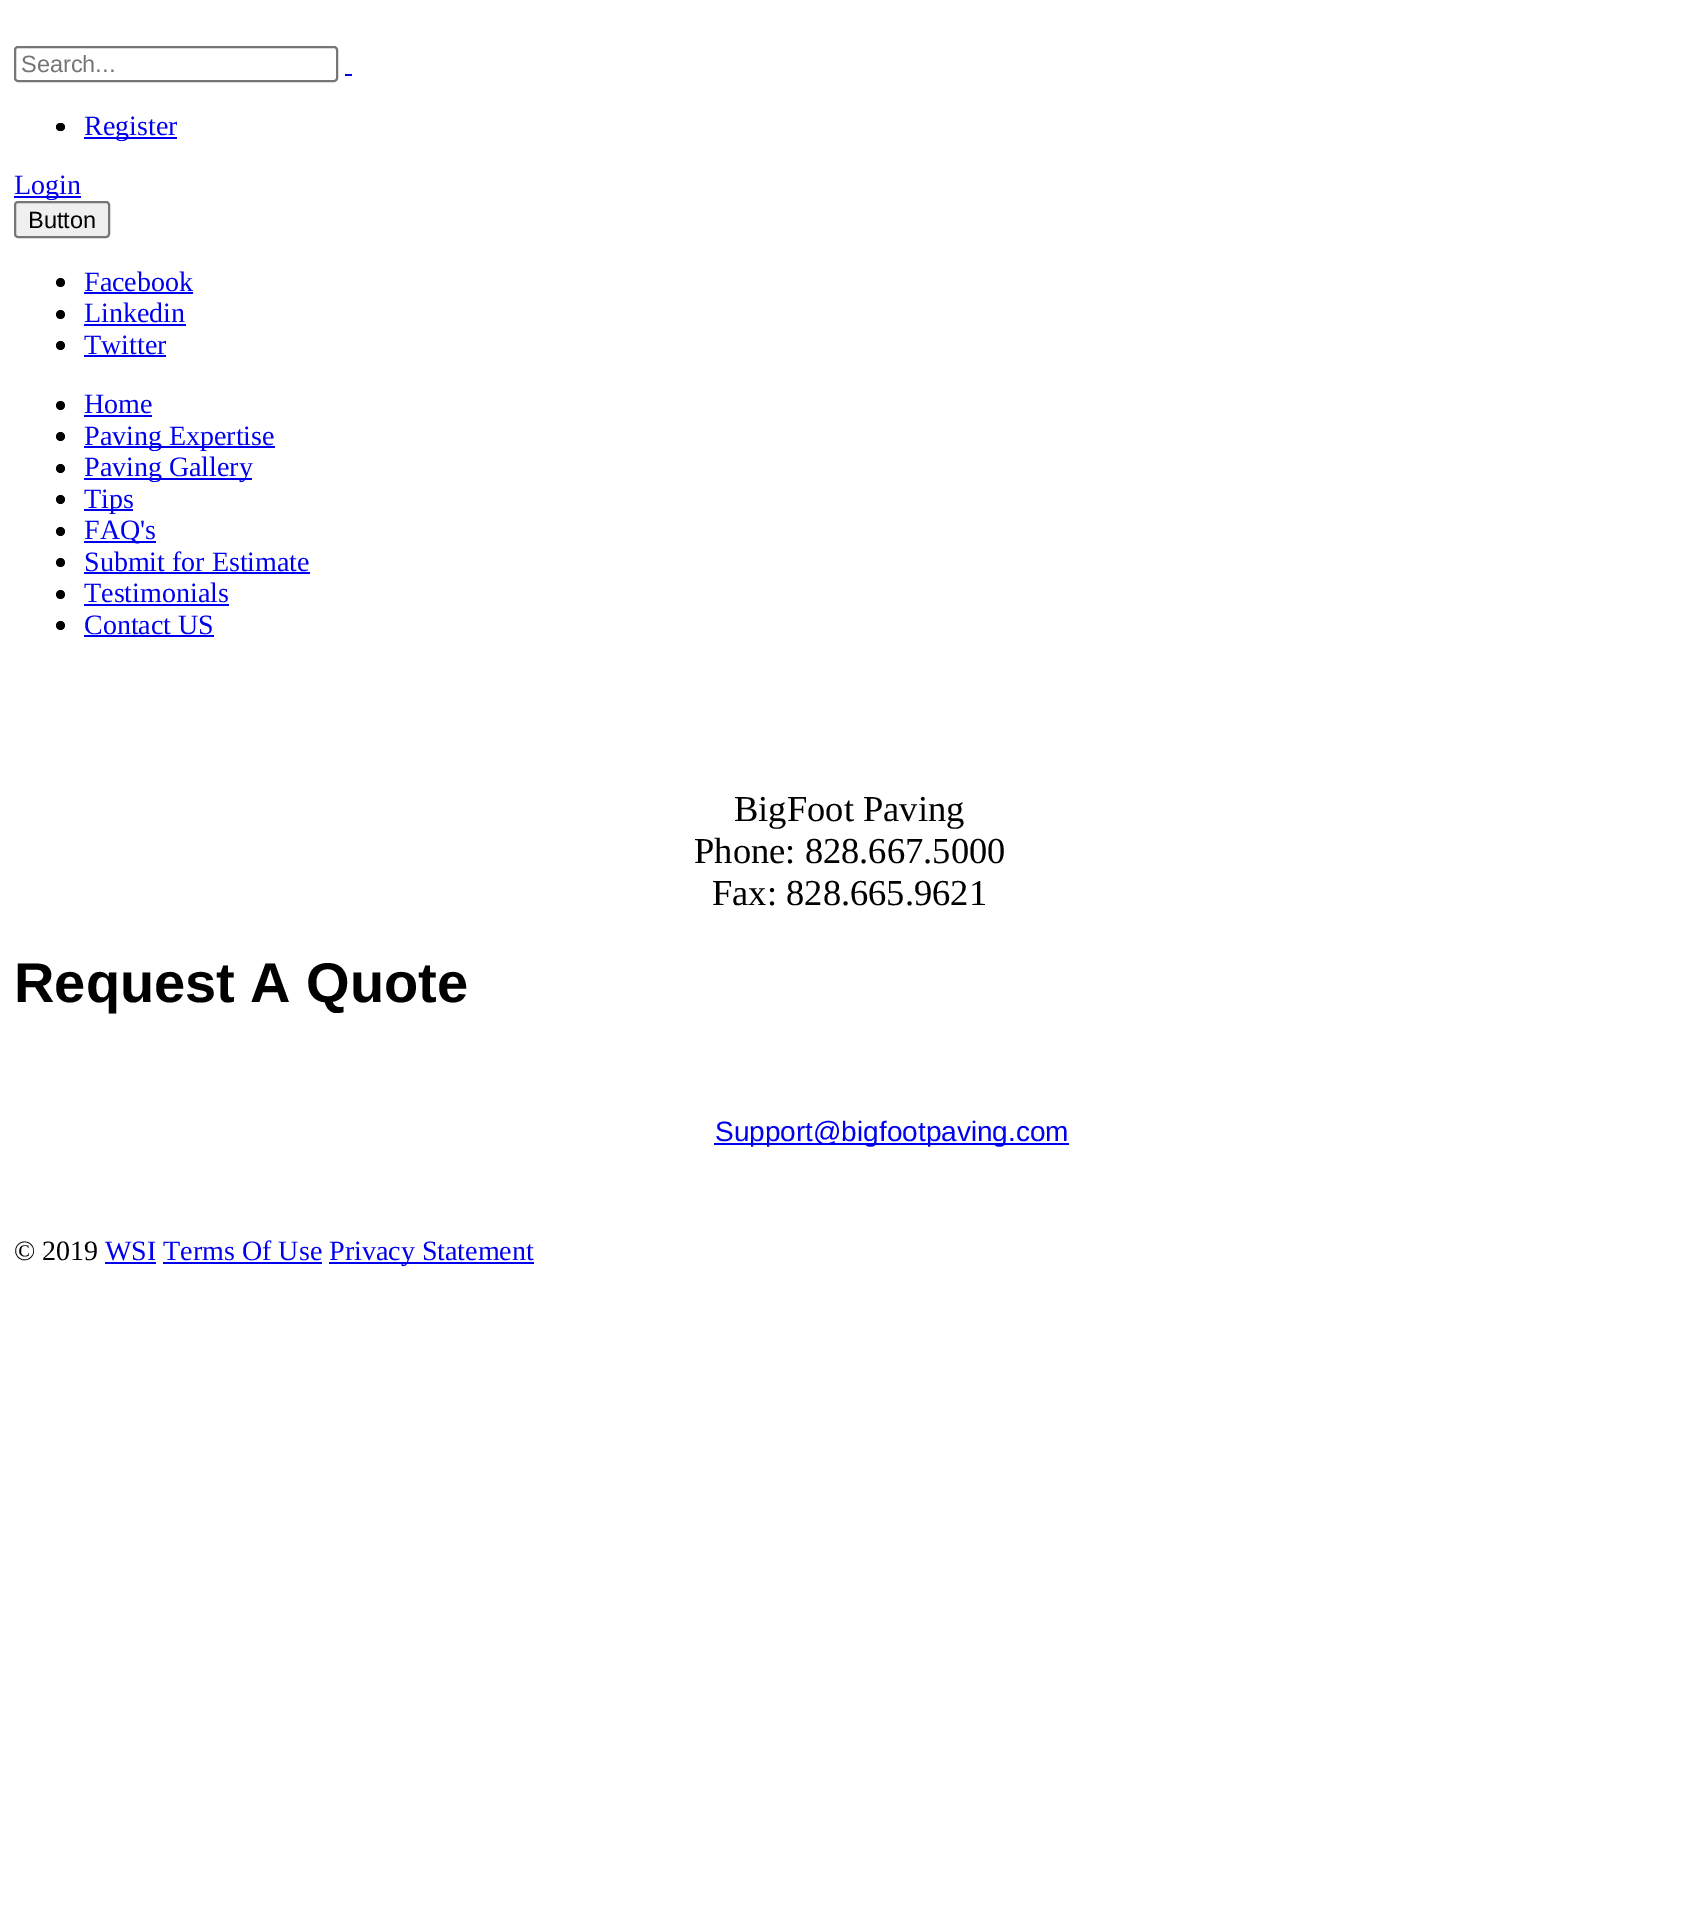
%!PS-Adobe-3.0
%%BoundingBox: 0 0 1696 1911
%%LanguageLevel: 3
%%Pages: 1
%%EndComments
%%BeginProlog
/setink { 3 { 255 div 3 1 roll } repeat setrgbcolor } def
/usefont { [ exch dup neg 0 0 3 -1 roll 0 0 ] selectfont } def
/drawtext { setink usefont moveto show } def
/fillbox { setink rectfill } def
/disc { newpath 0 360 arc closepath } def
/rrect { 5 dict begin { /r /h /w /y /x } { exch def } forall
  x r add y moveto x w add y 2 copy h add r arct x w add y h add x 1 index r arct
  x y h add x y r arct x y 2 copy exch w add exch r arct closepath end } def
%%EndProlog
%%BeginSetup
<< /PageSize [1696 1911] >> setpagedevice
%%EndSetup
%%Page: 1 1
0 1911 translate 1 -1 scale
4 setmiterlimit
0 0 1696 1911 255 255 255 fillbox
118 118 118 setink
2 setlinewidth
15 47 322 34 3 rrect stroke
(Search...) 21 72 /LiberationSans-Regular 23.5 117 117 117 drawtext
345 74 7 2 0 0 238 fillbox
0 0 0 setink
56 123 9 8 4 rrect fill
84 137 93 2 0 0 238 fillbox
(Register) 84 135 /LiberationSerif-Regular 28 0 0 238 drawtext
14 196 67 2 0 0 238 fillbox
(Login) 14 194 /LiberationSerif-Regular 28 0 0 238 drawtext
239 239 239 setink
15 202 94 35 3 rrect gsave fill grestore
118 118 118 setink
stroke
(Button) 28 228 /LiberationSans-Regular 23.5 0 0 0 drawtext
60.5 282.5 4.5 disc fill
(Facebook) 84 291 /LiberationSerif-Regular 28 0 0 238 drawtext
84 292 109 2 0 0 238 fillbox
0 0 0 setink
60.5 314.5 4.5 disc fill
(Linkedin) 84 322 /LiberationSerif-Regular 28 0 0 238 drawtext
84 324 102 2 0 0 238 fillbox
0 0 0 setink
60.5 345.5 4.5 disc fill
(Twitter) 84 354 /LiberationSerif-Regular 28 0 0 238 drawtext
84 355 82 2 0 0 238 fillbox
0 0 0 setink
60.5 405.5 4.5 disc fill
(Home) 84 413 /LiberationSerif-Regular 28 0 0 238 drawtext
84 415 68 2 0 0 238 fillbox
0 0 0 setink
60.5 436.5 4.5 disc fill
84 446 191 2 0 0 238 fillbox
(Paving Expertise) 84 445 /LiberationSerif-Regular 28 0 0 238 drawtext
0 0 0 setink
60.5 468.5 4.5 disc fill
84 478 168 2 0 0 238 fillbox
(Paving Gallery) 84 476 /LiberationSerif-Regular 28 0 0 238 drawtext
0 0 0 setink
60.5 499.5 4.5 disc fill
84 509 49 2 0 0 238 fillbox
(Tips) 84 508 /LiberationSerif-Regular 28 0 0 238 drawtext
0 0 0 setink
60.5 531.5 4.5 disc fill
84 541 72 2 0 0 238 fillbox
(FAQ's) 84 539 /LiberationSerif-Regular 28 0 0 238 drawtext
0 0 0 setink
60.5 562.5 4.5 disc fill
(Submit for Estimate) 84 571 /LiberationSerif-Regular 28 0 0 238 drawtext
84 572 226 2 0 0 238 fillbox
0 0 0 setink
60.5 594.5 4.5 disc fill
(Testimonials) 84 602 /LiberationSerif-Regular 28 0 0 238 drawtext
84 604 145 2 0 0 238 fillbox
0 0 0 setink
60.5 625.5 4.5 disc fill
(Contact US) 84 634 /LiberationSerif-Regular 28 0 0 238 drawtext
84 635 130 2 0 0 238 fillbox
(BigFoot Paving) 734 821 /LiberationSerif-Regular 36.5 0 0 0 drawtext
(Phone: 828.667.5000) 694 863 /LiberationSerif-Regular 36.5 0 0 0 drawtext
(Fax: 828.665.9621) 712 905 /LiberationSerif-Regular 36.5 0 0 0 drawtext
(Request A Quote) 14 1002 /LiberationSans-Bold 56 0 0 0 drawtext
714 1143 355 2 0 0 238 fillbox
(Support@bigfootpaving.com) 715 1141 /LiberationSans-Regular 28 0 0 238 drawtext
(© 2019) 14 1260 /LiberationSerif-Regular 28 0 0 0 drawtext
(WSI Terms Of Use) 105 1260 /LiberationSerif-Regular 28 0 0 238 drawtext
105 1262 51 2 0 0 238 fillbox
329 1262 205 2 0 0 238 fillbox
(Privacy Statement) 329 1260 /LiberationSerif-Regular 28 0 0 238 drawtext
163 1262 159 2 0 0 238 fillbox
showpage
%%EOF
